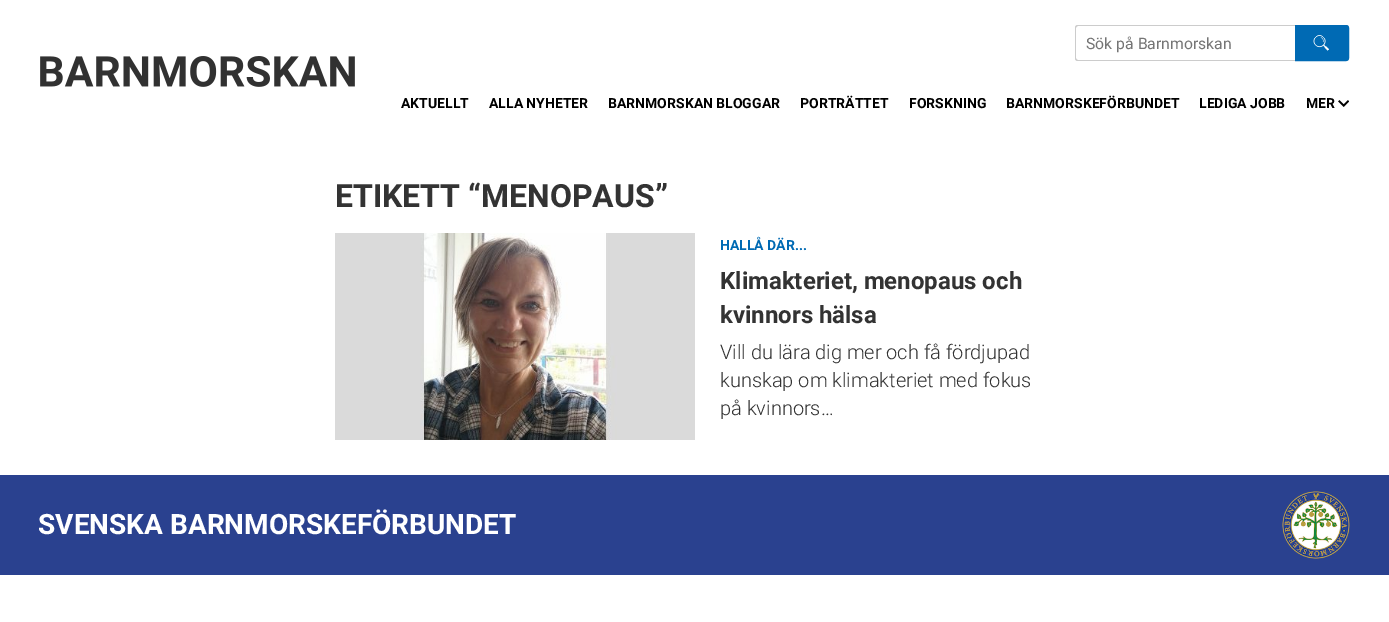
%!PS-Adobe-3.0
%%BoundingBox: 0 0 1389 622
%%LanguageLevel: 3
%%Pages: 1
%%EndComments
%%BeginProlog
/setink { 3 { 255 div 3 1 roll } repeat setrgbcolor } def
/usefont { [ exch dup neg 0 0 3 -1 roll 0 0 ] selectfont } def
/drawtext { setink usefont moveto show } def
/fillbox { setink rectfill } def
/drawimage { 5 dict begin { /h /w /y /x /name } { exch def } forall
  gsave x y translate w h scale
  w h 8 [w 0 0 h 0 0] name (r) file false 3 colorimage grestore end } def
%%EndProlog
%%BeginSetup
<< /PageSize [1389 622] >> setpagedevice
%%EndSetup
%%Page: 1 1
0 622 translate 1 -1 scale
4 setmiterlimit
0 0 1389 622 255 255 255 fillbox
(assets/img1.rgb) 40 56 315 31 drawimage
204 204 204 setink
1078 25 moveto 1295 25 lineto 1295 61 lineto 1078 61 lineto 1076 61 1075 60 1075 58 curveto 1075 28 lineto 1075 26 1076 25 1078 25 curveto closepath 1078 26 moveto 1295 26 lineto 1295 60 lineto 1078 60 lineto 1077 60 1076 59 1076 58 curveto 1076 28 lineto 1076 27 1077 26 1078 26 curveto closepath eofill
(Sök på Barnmorskan) 1086 49 /Roboto-Regular 15.75 117 117 117 drawtext
0 106 180 setink
1295.5 25.5 moveto 1346 25.5 lineto 1347.5 25.5 1348.5 26.5 1348.5 28 curveto 1348.5 58 lineto 1348.5 59.5 1347.5 60.5 1346 60.5 curveto 1295.5 60.5 lineto closepath gsave fill grestore
stroke
(assets/img2.rgb) 1313 35 16 16 drawimage
(AKTUELLT) 401 108 /Roboto-Bold 14 0 0 0 drawtext
(ALLA NYHETER) 489 108 /Roboto-Bold 14 0 0 0 drawtext
(BARNMORSKAN BLOGGAR) 608 108 /Roboto-Bold 14 0 0 0 drawtext
(PORTRÄTTET) 800 108 /Roboto-Bold 14 0 0 0 drawtext
(FORSKNING) 909 108 /Roboto-Bold 14 0 0 0 drawtext
(BARNMORSKEFÖRBUNDET) 1006 108 /Roboto-Bold 14 0 0 0 drawtext
(LEDIGA JOBB) 1199 108 /Roboto-Bold 14 0 0 0 drawtext
(MER) 1306 108 /Roboto-Bold 14 0 0 0 drawtext
(assets/img3.rgb) 1338 100 11 7 drawimage
(ETIKETT “MENOPAUS”) 335 207 /Roboto-Bold 32 51 51 51 drawtext
(assets/img4.rgb) 335 233 360 207 drawimage
(HALLÅ DÄR...) 720 250 /Roboto-Bold 14 0 106 180 drawtext
(Klimakteriet, menopaus och) 720 289 /Roboto-Bold 24 51 51 51 drawtext
(kvinnors hälsa) 720 323 /Roboto-Bold 24 51 51 51 drawtext
(Vill du lära dig mer och få fördjupad) 720 359 /Roboto-Light 20 51 51 51 drawtext
(kunskap om klimakteriet med fokus) 720 387 /Roboto-Light 20 51 51 51 drawtext
(på kvinnors…) 720 415 /Roboto-Light 20 51 51 51 drawtext
0 475 1389 100 42 65 143 fillbox
(SVENSKA BARNMORSKEFÖRBUNDET) 38 534 /Roboto-Bold 28 255 255 255 drawtext
(assets/img5.rgb) 1282 491 68 68 drawimage
showpage
%%EOF
